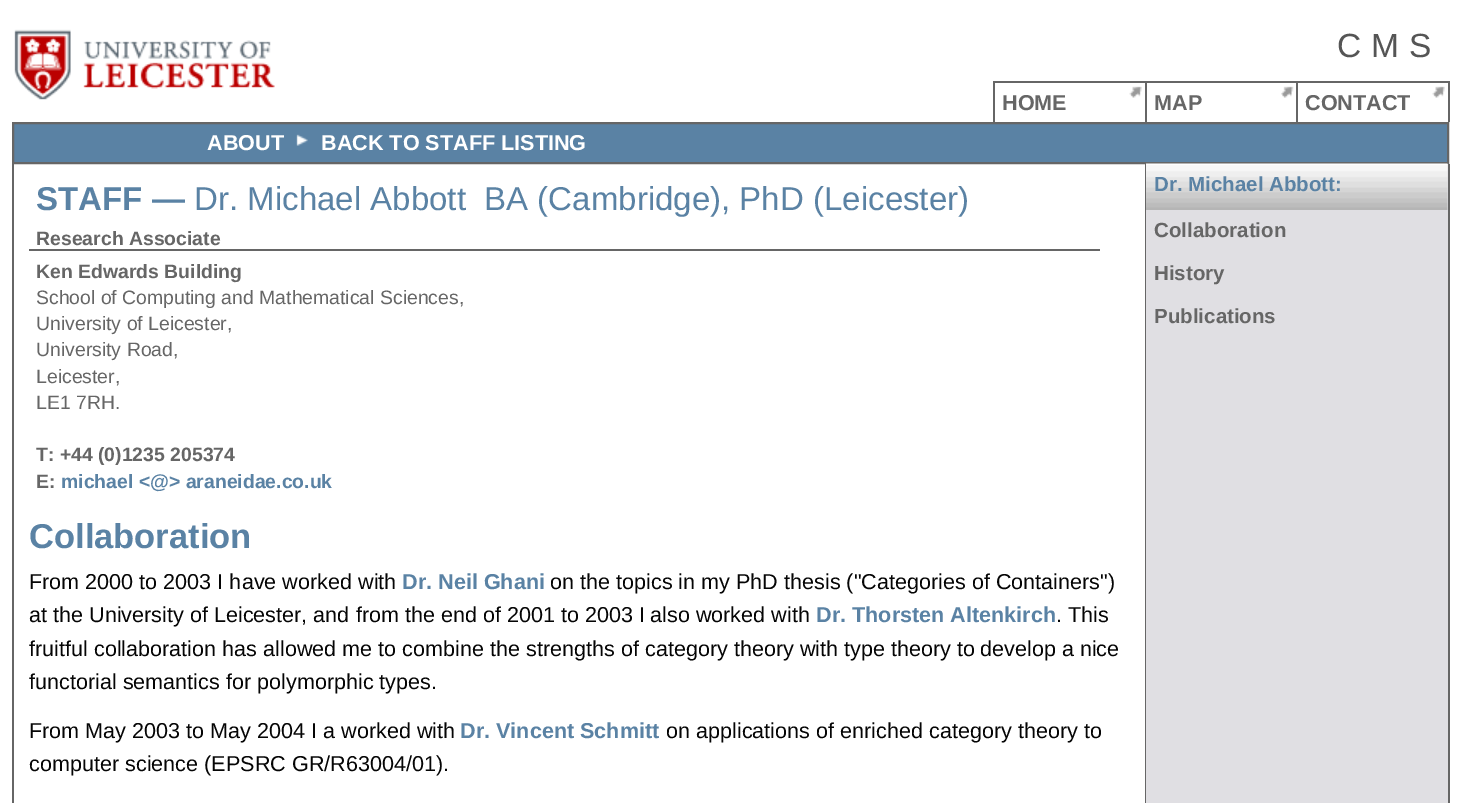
%!PS-Adobe-3.0
%%BoundingBox: 0 0 1460 803
%%LanguageLevel: 3
%%Pages: 1
%%EndComments
%%BeginProlog
/setink { 3 { 255 div 3 1 roll } repeat setrgbcolor } def
/usefont { [ exch dup neg 0 0 3 -1 roll 0 0 ] selectfont } def
/drawtext { setink usefont moveto show } def
/fillbox { setink rectfill } def
/drawimage { 5 dict begin { /h /w /y /x /name } { exch def } forall
  gsave x y translate w h scale
  w h 8 [w 0 0 h 0 0] name (r) file false 3 colorimage grestore end } def
%%EndProlog
%%BeginSetup
<< /PageSize [1460 803] >> setpagedevice
%%EndSetup
%%Page: 1 1
0 803 translate 1 -1 scale
4 setmiterlimit
0 0 1460 803 255 255 255 fillbox
(assets/img1.rgb) 14 29 261 71 drawimage
/LiberationSans-Regular 33.5 usefont
85 85 85 setink
1337 57 moveto 10 0 (CMS) ashow
(assets/img2.rgb) 1129 86 13 12 drawimage
993 81 456 2 102 102 102 fillbox
993 81 2 41 102 102 102 fillbox
(HOME) 1002 110 /LiberationSans-Bold 21.6 102 102 102 drawtext
(assets/img3.rgb) 1281 86 13 12 drawimage
1145 81 2 41 102 102 102 fillbox
(MAP) 1154 110 /LiberationSans-Bold 21.6 102 102 102 drawtext
(assets/img2.rgb) 1432 86 13 12 drawimage
1448 81 2 41 102 102 102 fillbox
1296 81 2 41 102 102 102 fillbox
(CONTACT) 1305 110 /LiberationSans-Bold 21.6 102 102 102 drawtext
14 124 1433 38 90 130 164 fillbox
(assets/img4.rgb) 296 134 12 12 drawimage
102 102 102 setink
2 setlinewidth
13 123 1435 40 rectstroke
(ABOUT) 207 150 /LiberationSans-Bold 21.6 255 255 255 drawtext
(BACK TO STAFF LISTING) 321 150 /LiberationSans-Bold 21.6 255 255 255 drawtext
1145 164 1 639 102 102 102 fillbox
12 164 2 639 102 102 102 fillbox
29 249 1071 2 102 102 102 fillbox
(STAFF —) 36 210 /LiberationSans-Bold 33.05 90 130 164 drawtext
(Dr. Michael Abbott  BA \(Cambridge\), PhD \(Leicester\)) 194 210 /LiberationSans-Regular 33.05 90 130 164 drawtext
(Research Associate) 36 245 /LiberationSans-Bold 19.4 102 102 102 drawtext
(Ken Edwards Building) 36 278 /LiberationSans-Bold 19.4 102 102 102 drawtext
(School of Computing and Mathematical Sciences,) 36 304 /LiberationSans-Regular 19.4 102 102 102 drawtext
(University of Leicester,) 36 330 /LiberationSans-Regular 19.4 102 102 102 drawtext
(University Road,) 36 356 /LiberationSans-Regular 19.4 102 102 102 drawtext
(Leicester,) 36 383 /LiberationSans-Regular 19.4 102 102 102 drawtext
(LE1 7RH.) 36 409 /LiberationSans-Regular 19.4 102 102 102 drawtext
(T: +44 \(0\)1235 205374) 36 461 /LiberationSans-Bold 19.4 102 102 102 drawtext
(E:) 36 488 /LiberationSans-Bold 19.4 102 102 102 drawtext
(michael <@> araneidae.co.uk) 61 488 /LiberationSans-Bold 19.4 90 130 164 drawtext
(Collaboration) 29 548 /LiberationSans-Bold 34.5 90 130 164 drawtext
(From 2000 to 2003 I have worked with) 29 589 /LiberationSans-Regular 21.6 5 5 5 drawtext
(Dr. Neil Ghani) 402 589 /LiberationSans-Bold 21.6 90 130 164 drawtext
(on the topics in my PhD thesis \("Categories of Containers"\)) 550 589 /LiberationSans-Regular 21.6 5 5 5 drawtext
(at the University of Leicester, and from the end of 2001 to 2003 I) 29 622 /LiberationSans-Regular 21.6 5 5 5 drawtext
(also worked with) 650 622 /LiberationSans-Regular 21.6 5 5 5 drawtext
(Dr. Thorsten Altenkirch) 816 622 /LiberationSans-Bold 21.6 90 130 164 drawtext
(. This) 1056 622 /LiberationSans-Regular 21.6 5 5 5 drawtext
(fruitful collaboration has allowed me to combine the strengths of category theory with type theory to) 29 656 /LiberationSans-Regular 21.6 5 5 5 drawtext
(develop a nice) 980 656 /LiberationSans-Regular 21.6 5 5 5 drawtext
(functorial semantics for polymorphic types.) 29 689 /LiberationSans-Regular 21.6 5 5 5 drawtext
(From May 2003 to May 2004 I a worked with) 29 738 /LiberationSans-Regular 21.6 5 5 5 drawtext
(Dr. Vincent Schmitt) 460 738 /LiberationSans-Bold 21.6 90 130 164 drawtext
(on applications of enriched category theory to) 666 738 /LiberationSans-Regular 21.6 5 5 5 drawtext
(computer science \(EPSRC GR/R63004/01\).) 29 771 /LiberationSans-Regular 21.6 5 5 5 drawtext
1146 164 302 639 224 223 227 fillbox
1448 164 2 639 102 102 102 fillbox
(assets/img5.rgb) 1146 163 302 47 drawimage
(Dr. Michael Abbott:) 1154 191 /LiberationSans-Bold 20.5 90 130 164 drawtext
(Collaboration) 1154 237 /LiberationSans-Bold 20.5 102 102 102 drawtext
(History) 1154 280 /LiberationSans-Bold 20.5 102 102 102 drawtext
(Publications) 1154 323 /LiberationSans-Bold 20.5 102 102 102 drawtext
showpage
%%EOF
